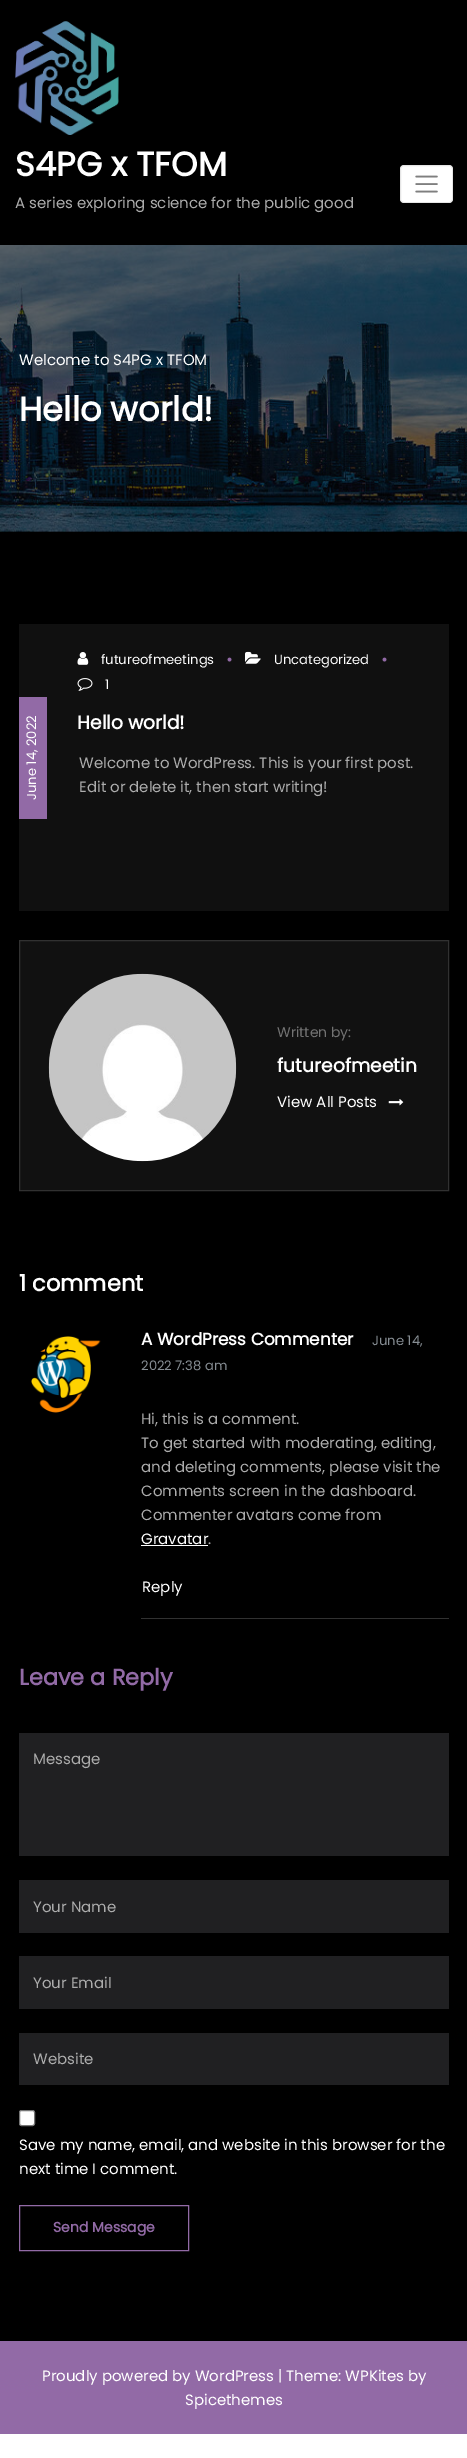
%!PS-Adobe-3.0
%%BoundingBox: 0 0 467 2458
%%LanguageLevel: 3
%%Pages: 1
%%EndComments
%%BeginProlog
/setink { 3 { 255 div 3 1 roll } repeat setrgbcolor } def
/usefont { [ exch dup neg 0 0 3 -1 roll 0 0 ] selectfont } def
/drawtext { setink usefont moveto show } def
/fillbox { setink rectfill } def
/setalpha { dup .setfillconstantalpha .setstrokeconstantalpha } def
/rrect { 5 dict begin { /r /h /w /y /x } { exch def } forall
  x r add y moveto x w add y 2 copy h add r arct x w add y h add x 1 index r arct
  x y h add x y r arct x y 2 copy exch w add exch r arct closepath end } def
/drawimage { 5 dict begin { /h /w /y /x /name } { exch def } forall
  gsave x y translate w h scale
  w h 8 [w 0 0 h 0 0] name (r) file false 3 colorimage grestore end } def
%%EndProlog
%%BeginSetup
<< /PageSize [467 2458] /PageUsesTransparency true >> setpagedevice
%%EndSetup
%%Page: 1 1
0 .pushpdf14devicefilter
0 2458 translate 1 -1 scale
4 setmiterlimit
0 0 467 2458 255 255 255 fillbox
0 0 467 2341 0 0 0 fillbox
(assets/img1.rgb) 15 21 104 114 drawimage
(S4PG x TFOM) 15 176 /Poppins-Bold 33.75 255 255 255 drawtext
(A series exploring science for the public good) 15 208 /Poppins-Regular 15 172 172 172 drawtext
255 255 255 setink
400 165 53 38 4 rrect fill
0.1 setalpha
0 0 0 setink
400.5 165.5 52 37 3.5 rrect stroke
1 setalpha
(assets/img2.rgb) 415 175 23 18 drawimage
(assets/img3.rgb) 0 245 467 287 drawimage
(Welcome to S4PG x TFOM) 19 365 /Poppins-Regular 15 255 255 255 drawtext
(Hello world!) 19 421 /Poppins-Bold 33.75 255 255 255 drawtext
19 624 430 287 16 16 16 fillbox
(assets/img4.rgb) 77 652 12 13 drawimage
(futureofmeetings) 101 664 /Poppins-Regular 13.1 255 255 255 drawtext
(assets/img5.rgb) 227 657 5 5 drawimage
(assets/img6.rgb) 245 651 16 13 drawimage
(Uncategorized) 274 664 /Poppins-Regular 13.1 255 255 255 drawtext
(assets/img5.rgb) 382 657 5 5 drawimage
(assets/img7.rgb) 77 678 16 13 drawimage
(1) 105 689 /Poppins-Regular 13.1 255 255 255 drawtext
19 697 28 122 146 106 166 fillbox
255 255 255 setink
gsave 36 800 translate -90 rotate 0 0 moveto (June 14, 2022) show grestore
(Hello world!) 77 729 /Poppins-Bold 18.75 255 255 255 drawtext
(Welcome to WordPress. This is your first post.) 79 768 /Poppins-Regular 15 172 172 172 drawtext
(Edit or delete it, then start writing!) 79 792 /Poppins-Regular 15 172 172 172 drawtext
17 17 17 setink
19.5 940.5 moveto 448.5 940.5 lineto 448.5 1190.5 lineto 19.5 1190.5 lineto closepath gsave fill grestore
49 49 49 setink
stroke
(assets/img8.rgb) 48 973 189 189 drawimage
(Written by:) 277 1037 /Poppins-Regular 14 114 114 114 drawtext
(futureofmeetin) 277 1072 /Poppins-Bold 18.75 255 255 255 drawtext
(View All Posts) 277 1107 /Poppins-Regular 15 255 255 255 drawtext
(assets/img9.rgb) 388 1099 16 7 drawimage
(1 comment) 19 1291 /Poppins-Bold 22.5 255 255 255 drawtext
(assets/img10.rgb) 31 1336 70 77 drawimage
141 1618 308 1 49 49 49 fillbox
(A WordPress Commenter) 141 1345 /Poppins-Bold 16.9 255 255 255 drawtext
(June 14,) 372 1345 /Poppins-Regular 13.1 135 142 148 drawtext
(2022 7:38 am) 141 1370 /Poppins-Regular 13.1 135 142 148 drawtext
(Hi, this is a comment.) 141 1424 /Poppins-Regular 15 172 172 172 drawtext
(To get started with moderating, editing,) 141 1448 /Poppins-Regular 15 172 172 172 drawtext
(and deleting comments, please visit the) 141 1472 /Poppins-Regular 15 172 172 172 drawtext
(Comments screen in the dashboard.) 141 1496 /Poppins-Regular 15 172 172 172 drawtext
(Commenter avatars come from) 141 1520 /Poppins-Regular 15 172 172 172 drawtext
(Gravatar) 141 1544 /Poppins-Regular 15 255 255 255 drawtext
141 1545 67 1 255 255 255 fillbox
(.) 208 1544 /Poppins-Regular 15 172 172 172 drawtext
(Reply) 142 1592 /Poppins-Regular 15 255 255 255 drawtext
(Leave a Reply) 19 1685 /Poppins-Bold 22.5 146 106 166 drawtext
19 1733 430 123 32 32 34 fillbox
(Message) 33 1764 /Poppins-Regular 15 172 172 172 drawtext
19 1880 430 53 32 32 34 fillbox
(Your Name) 33 1912 /Poppins-Regular 15 172 172 172 drawtext
19 1956 430 53 32 32 34 fillbox
(Your Email) 33 1988 /Poppins-Regular 15 172 172 172 drawtext
19 2033 430 52 32 32 34 fillbox
(Website) 33 2064 /Poppins-Regular 15 172 172 172 drawtext
255 255 255 setink
19.5 2110.5 15 15 2 rrect gsave fill grestore
118 118 118 setink
stroke
(Save my name, email, and website in this browser for the) 19 2150 /Poppins-Regular 15 255 255 255 drawtext
(next time I comment.) 19 2174 /Poppins-Regular 15 255 255 255 drawtext
146 106 166 setink
19.5 2205.5 169 45 rectstroke
(Send Message) 53 2232 /Poppins-Bold 14 146 106 166 drawtext
0 2341 467 93 146 106 166 fillbox
(Proudly powered by WordPress | Theme: WPKites by) 42 2381 /Poppins-Regular 15 255 255 255 drawtext
(Spicethemes) 185 2405 /Poppins-Regular 15 255 255 255 drawtext
.poppdf14devicefilter showpage
%%EOF
